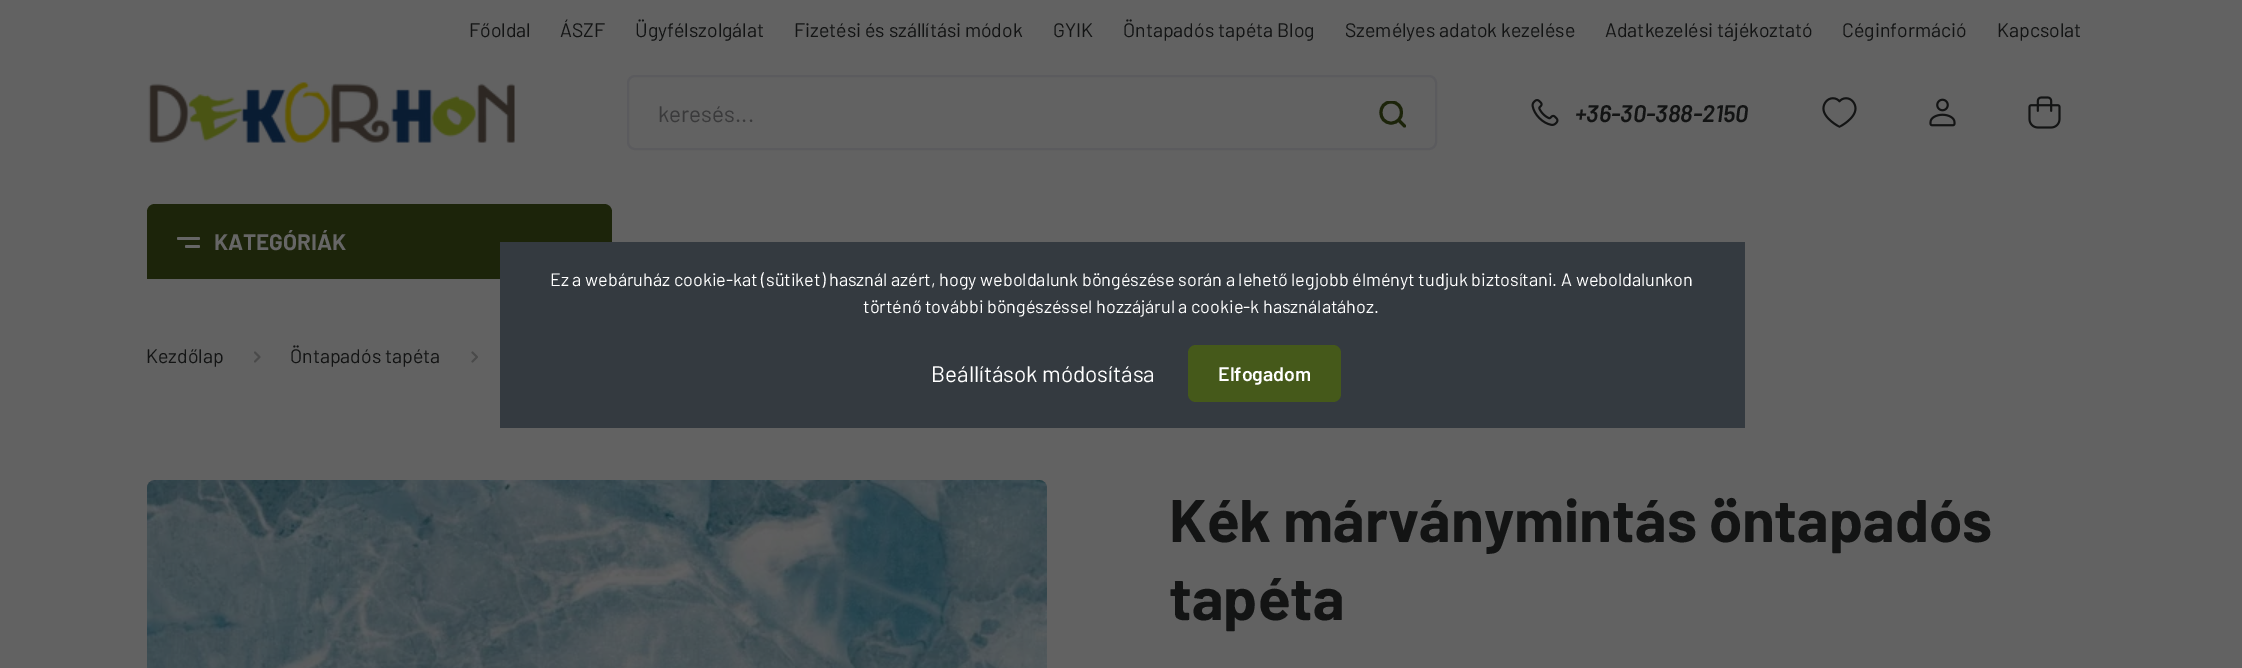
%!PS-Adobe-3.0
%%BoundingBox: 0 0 2242 668
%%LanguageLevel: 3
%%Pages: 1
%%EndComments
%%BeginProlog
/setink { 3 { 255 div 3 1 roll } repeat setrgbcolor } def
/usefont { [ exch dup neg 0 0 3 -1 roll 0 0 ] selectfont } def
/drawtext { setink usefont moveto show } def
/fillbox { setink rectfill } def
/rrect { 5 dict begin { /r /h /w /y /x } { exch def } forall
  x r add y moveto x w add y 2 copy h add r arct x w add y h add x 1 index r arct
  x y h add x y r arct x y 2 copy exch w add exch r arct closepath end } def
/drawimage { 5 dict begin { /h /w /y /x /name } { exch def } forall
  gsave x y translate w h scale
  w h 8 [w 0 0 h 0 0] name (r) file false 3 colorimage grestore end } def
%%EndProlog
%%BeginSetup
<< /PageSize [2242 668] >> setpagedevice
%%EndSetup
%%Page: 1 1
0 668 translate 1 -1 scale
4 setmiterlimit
0 0 2242 668 98 98 98 fillbox
(Főoldal) 469 37 /Barlow-Regular 19.5 19 20 20 drawtext
(ÁSZF) 560 37 /Barlow-Regular 19.5 19 20 20 drawtext
(Ügyfélszolgálat) 635 37 /Barlow-Regular 19.5 19 20 20 drawtext
(Fizetési és szállítási módok) 794 37 /Barlow-Regular 19.5 19 20 20 drawtext
(GYIK) 1053 37 /Barlow-Regular 19.5 19 20 20 drawtext
(Öntapadós tapéta Blog) 1123 37 /Barlow-Regular 19.5 19 20 20 drawtext
(Személyes adatok kezelése) 1345 37 /Barlow-Regular 19.5 19 20 20 drawtext
(Adatkezelési tájékoztató) 1605 37 /Barlow-Regular 19.5 19 20 20 drawtext
(Céginformáció) 1842 37 /Barlow-Regular 19.5 19 20 20 drawtext
(Kapcsolat) 1997 37 /Barlow-Regular 19.5 19 20 20 drawtext
(assets/img1.rgb) 148 82 367 61 drawimage
91 91 94 setink
2 setlinewidth
628 76 808 73 7 rrect stroke
(keresés...) 658 122 /Barlow-Regular 22.5 58 58 59 drawtext
gsave
1379 101 28 27 rectclip
28 36 10 setink
3 setlinewidth
1 setlinecap
1 setlinejoin
1404.5 126 moveto 1398.5 120 lineto 1391 123 moveto 1377.5 123 1377.5 102 1391 102 curveto 1405 102 1405 123 1391 123 curveto closepath stroke
grestore
(assets/img2.rgb) 1531 99 28 27 drawimage
(+36-30-388-2150) 1575 122 /Barlow-SemiBoldItalic 24 19 20 20 drawtext
(assets/img3.rgb) 1822 97 35 31 drawimage
(assets/img4.rgb) 1929 98 27 29 drawimage
(assets/img5.rgb) 2028 96 33 33 drawimage
28 36 10 setink
155 204 moveto 604 204 lineto 608.5 204 612 207.5 612 212 curveto 612 279 lineto 147 279 lineto 147 212 lineto 147 207.5 150.5 204 155 204 curveto closepath fill
102 102 102 setink
177 237 23 3 1.5 rrect fill
185 245 15 3 1.5 rrect fill
(KATEGÓRIÁK) 214 250 /Barlow-Bold 22.5 102 102 102 drawtext
(Kezdőlap) 146 363 /Barlow-Regular 19.5 19 20 20 drawtext
(assets/img6.rgb) 254 351 7 12 drawimage
(Öntapadós tapéta) 290 363 /Barlow-Regular 19.5 19 20 20 drawtext
(assets/img7.rgb) 471 351 7 12 drawimage
(assets/img8.rgb) 147 480 900 188 drawimage
(Kék márványmintás öntapadós) 1169 542 /Barlow-Bold 60 19 20 20 drawtext
(tapéta) 1169 620 /Barlow-Bold 60 19 20 20 drawtext
500 242 1245 186 52 58 64 fillbox
(Ez a webáruház cookie-kat \(sütiket\) használ azért, hogy weboldalunk böngészése során a lehető legjobb élményt tudjuk biztosítani. A weboldalunkon) 550 286 /Barlow-Regular 18 255 255 255 drawtext
(történő további böngészéssel hozzájárul a cookie-k használatához.) 863 313 /Barlow-Regular 18 255 255 255 drawtext
(Beállítások módosítása) 931 382 /Barlow-Regular 22.5 255 255 255 drawtext
69 89 26 setink
1188 345 153 57 8 rrect fill
(Elfogadom) 1218 381 /Barlow-SemiBold 19.5 255 255 255 drawtext
showpage
%%EOF
